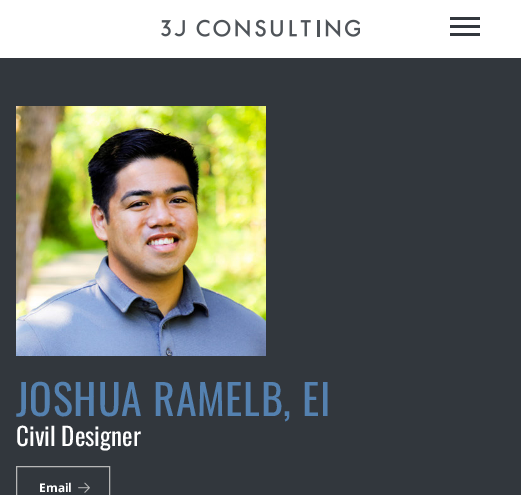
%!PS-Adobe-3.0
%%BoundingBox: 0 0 521 495
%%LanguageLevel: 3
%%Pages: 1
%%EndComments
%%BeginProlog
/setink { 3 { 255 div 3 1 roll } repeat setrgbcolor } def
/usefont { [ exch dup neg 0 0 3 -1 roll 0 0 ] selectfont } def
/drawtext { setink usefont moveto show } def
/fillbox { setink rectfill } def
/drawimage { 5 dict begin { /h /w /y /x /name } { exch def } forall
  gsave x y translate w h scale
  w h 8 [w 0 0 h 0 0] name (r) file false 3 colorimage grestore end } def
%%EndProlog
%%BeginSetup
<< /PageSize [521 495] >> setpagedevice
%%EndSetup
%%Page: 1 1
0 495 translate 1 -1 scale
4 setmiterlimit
0 0 521 495 255 255 255 fillbox
(assets/img1.rgb) 161 19 199 19 drawimage
450 17 30 3 50 55 61 fillbox
450 25 30 3 50 55 61 fillbox
450 33 30 3 50 55 61 fillbox
0 58 521 437 50 55 61 fillbox
(assets/img2.rgb) 16 106 250 250 drawimage
/Oswald-Regular 42 usefont
84 129 176 setink
16 416 moveto 0.75 0 (JOSHUA RAMELB, EI) ashow
(Civil Designer) 16 446 /Oswald-Regular 25 255 255 255 drawtext
183 183 183 setink
16.5 466.5 93 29 rectstroke
(Email) 39 492 /OpenSans-Bold 12 255 255 255 drawtext
(assets/img3.rgb) 78 482 12 11 drawimage
showpage
%%EOF
